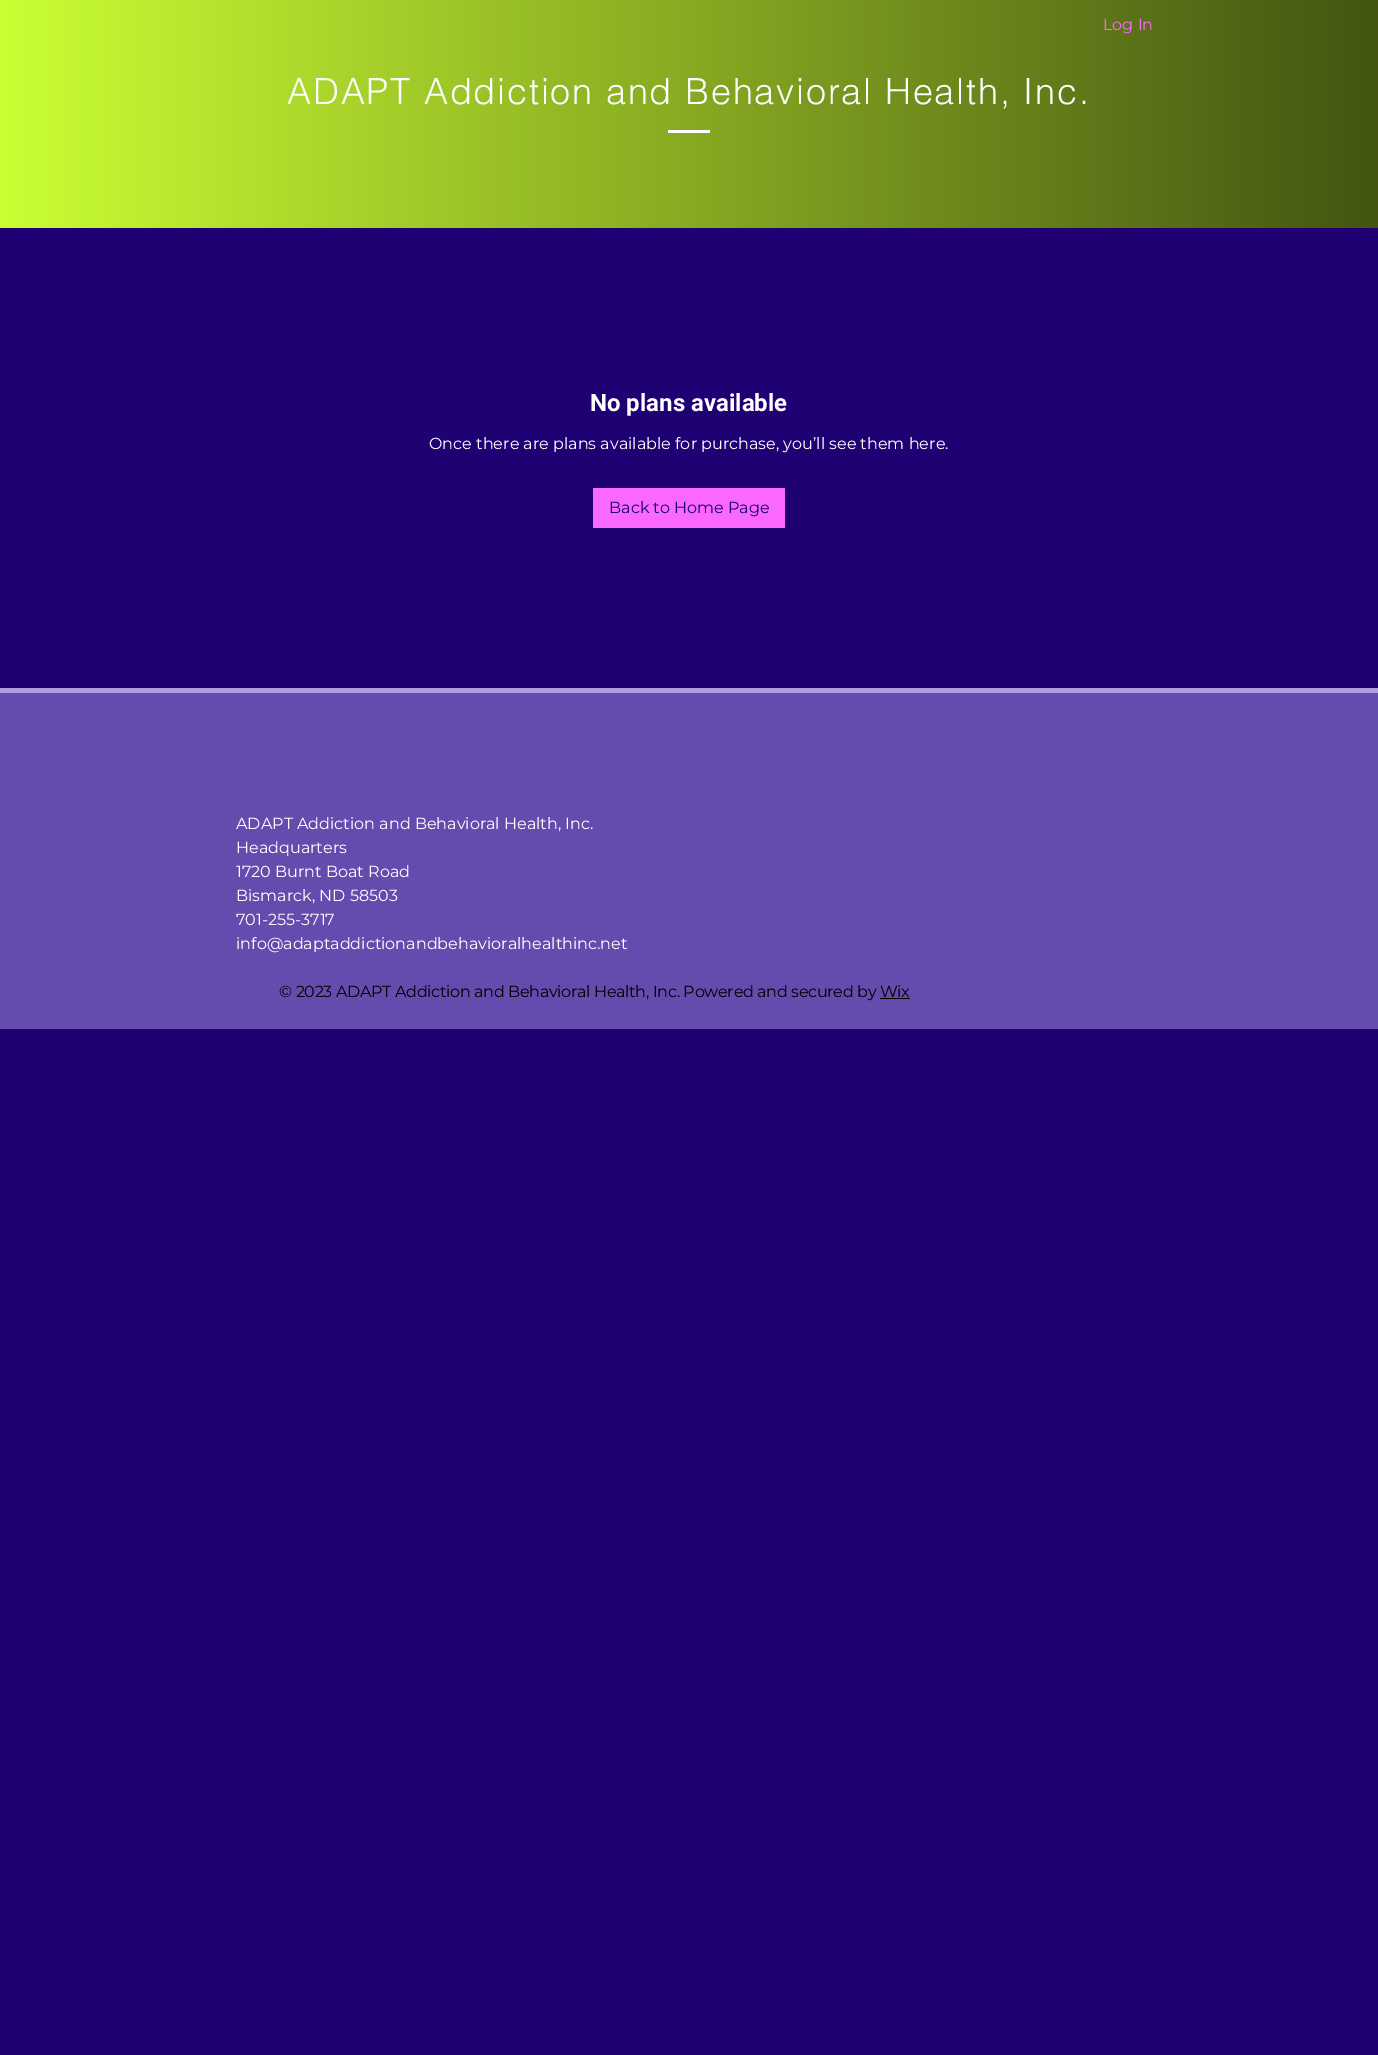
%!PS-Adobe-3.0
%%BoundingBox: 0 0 1378 2055
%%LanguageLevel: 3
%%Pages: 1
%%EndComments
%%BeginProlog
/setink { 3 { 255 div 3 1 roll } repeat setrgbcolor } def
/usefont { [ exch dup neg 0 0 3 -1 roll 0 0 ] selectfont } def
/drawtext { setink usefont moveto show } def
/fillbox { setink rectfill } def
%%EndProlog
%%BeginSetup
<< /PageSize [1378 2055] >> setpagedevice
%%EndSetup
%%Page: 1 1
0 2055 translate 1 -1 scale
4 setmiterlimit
0 0 1378 2055 32 1 116 fillbox
gsave 0 0 moveto 1378 0 lineto 1378 228 lineto 0 228 lineto closepath clip newpath
<< /ShadingType 2 /ColorSpace /DeviceRGB /Coords [0 114 1378 114] /Extend [true true] /Function << /FunctionType 2 /Domain [0 1] /C0 [0.792 1 0.2] /C1 [0.263 0.333 0.067] /N 1 >> >> shfill grestore
(Log In) 1103 30 /Montserrat-Regular 16 251 104 255 drawtext
/helvetica-Light 36 usefont
255 255 255 setink
287 104 moveto 1.8 0 (ADAPT Addiction and Behavioral Health, Inc.) ashow
668 130 42 3 255 255 255 fillbox
(No plans available) 590 411 /Roboto-Bold 24 255 255 255 drawtext
(Once there are plans available for purchase, you’ll see them here.) 429 449 /Montserrat-Regular 16 255 255 255 drawtext
593 488 192 40 251 104 255 fillbox
(Back to Home Page) 609 513 /Montserrat-Regular 16 32 1 116 drawtext
0 693 1378 336 101 75 173 fillbox
0 688 1378 5 175 157 224 fillbox
(ADAPT Addiction and Behavioral Health, Inc.) 236 829 /Montserrat-Regular 16 255 255 255 drawtext
(Headquarters) 236 853 /Montserrat-Regular 16 255 255 255 drawtext
(1720 Burnt Boat Road) 236 877 /Montserrat-Regular 16 255 255 255 drawtext
(Bismarck, ND 58503) 236 901 /Montserrat-Regular 16 255 255 255 drawtext
(701-255-3717) 236 925 /Montserrat-Regular 16 255 255 255 drawtext
(info@adaptaddictionandbehavioralhealthinc.net) 236 949 /Montserrat-Regular 16 255 255 255 drawtext
0 0 0 setink
279 997 moveto -0.32 0 (© 2023 ADAPT Addiction and Behavioral Health, Inc. Powered and secured by Wix) ashow
880 998 30 1 0 0 0 fillbox
showpage
%%EOF
